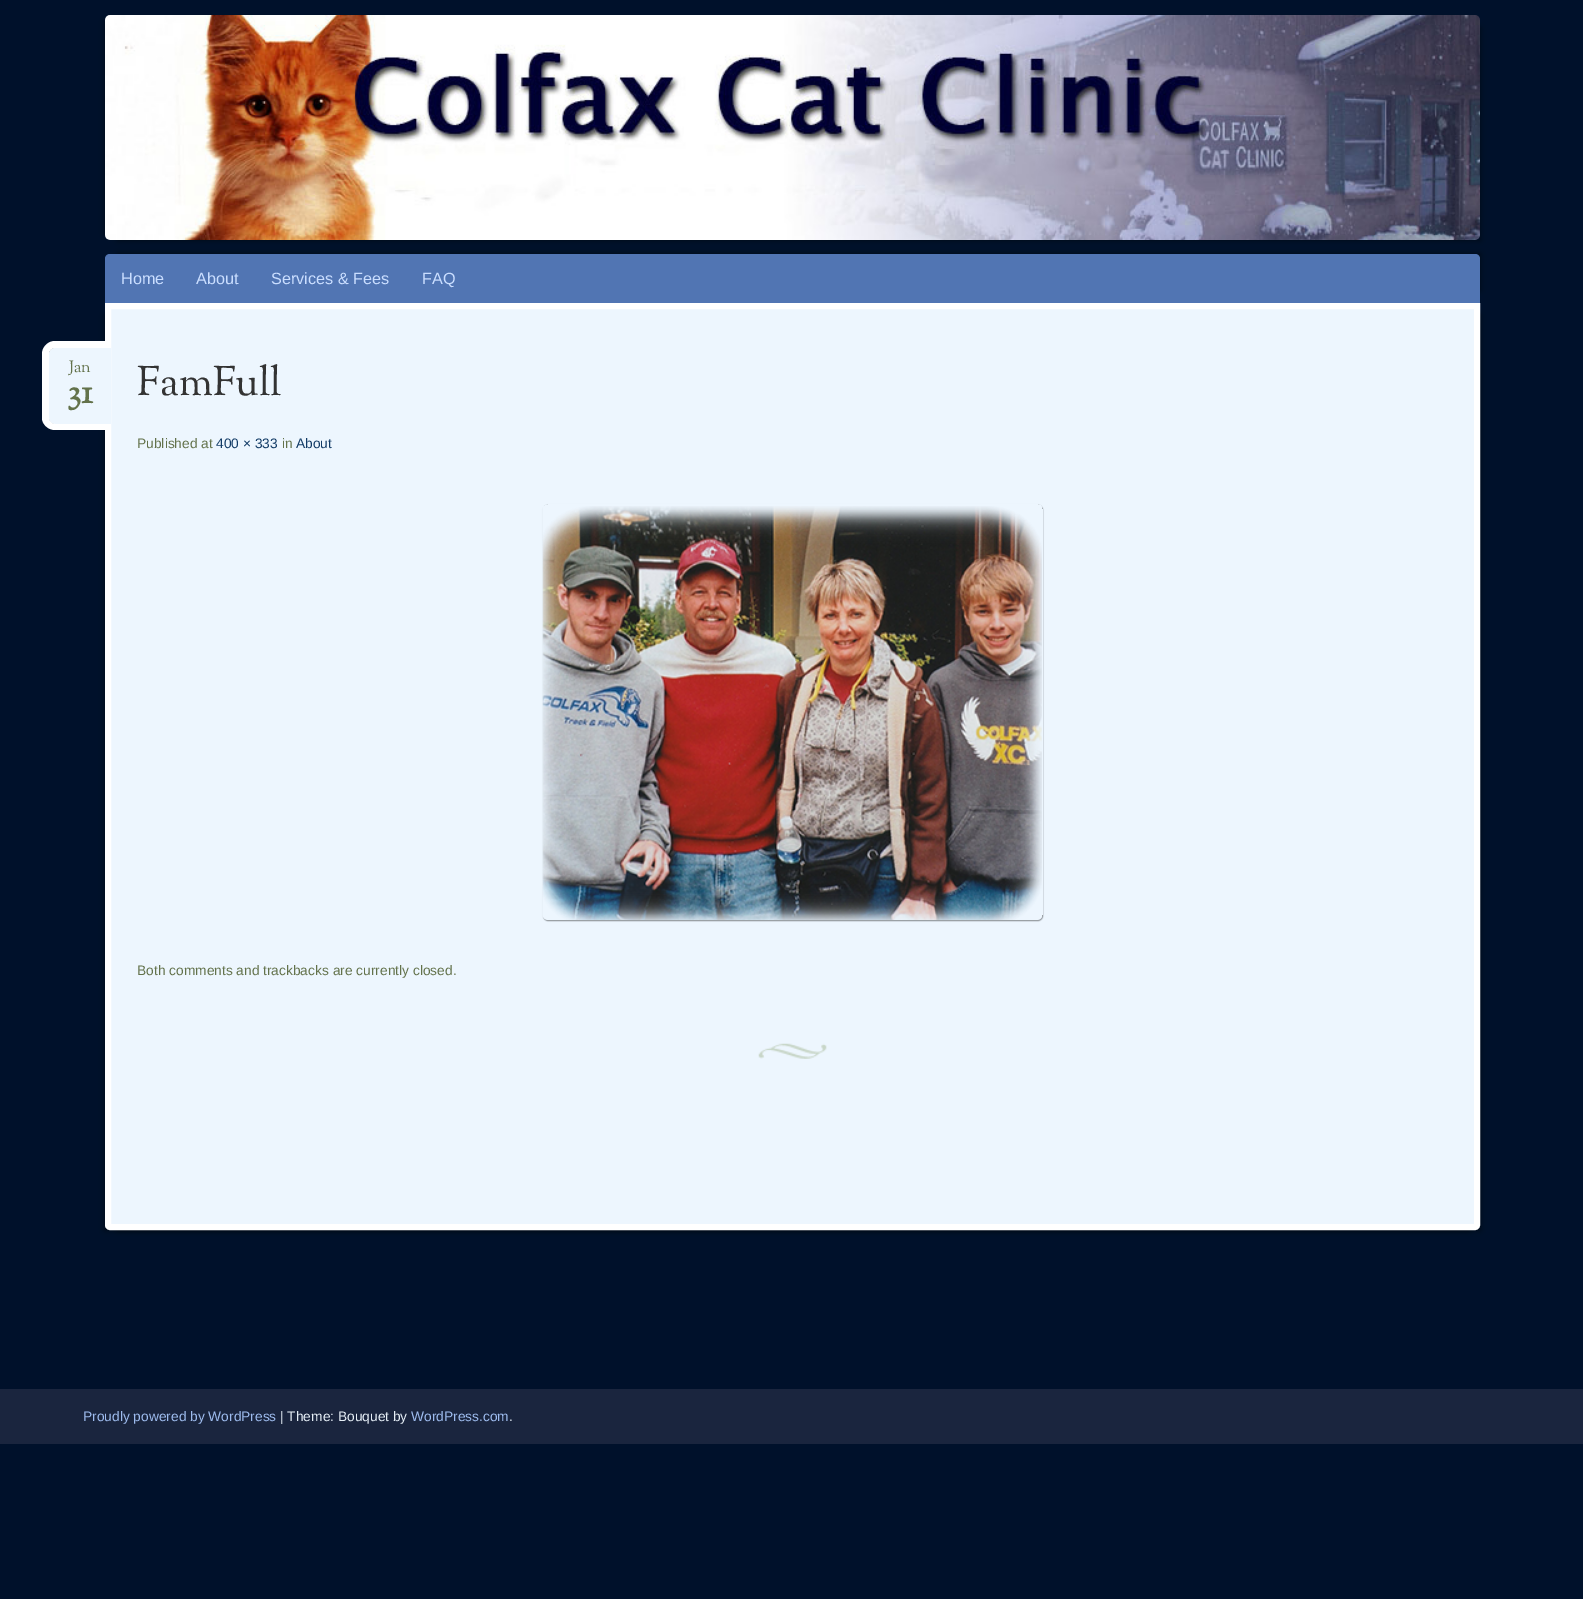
%!PS-Adobe-3.0
%%BoundingBox: 0 0 1583 1599
%%LanguageLevel: 3
%%Pages: 1
%%EndComments
%%BeginProlog
/setink { 3 { 255 div 3 1 roll } repeat setrgbcolor } def
/usefont { [ exch dup neg 0 0 3 -1 roll 0 0 ] selectfont } def
/drawtext { setink usefont moveto show } def
/fillbox { setink rectfill } def
/setalpha { dup .setfillconstantalpha .setstrokeconstantalpha } def
/rrect { 5 dict begin { /r /h /w /y /x } { exch def } forall
  x r add y moveto x w add y 2 copy h add r arct x w add y h add x 1 index r arct
  x y h add x y r arct x y 2 copy exch w add exch r arct closepath end } def
/softshadow { 12 dict begin { /a /b /q /h /w /y /x } { exch def } forall gsave /was 0 def
  9 -2 -9 { dup b mul 4 div /e exch def 1 sub .425 mul 2.718 exch exp 1 add a .99 .min exch div /now exch def
    1 1 now sub 1 was sub div sub setalpha /was now def
    w h .min e 2 mul add 0 gt { x e sub y e sub w e 2 mul add h e 2 mul add
      q e add b .6 mul add w h .min 2 div e add .min 0 .max rrect fill } if } for grestore end } def
/drawimage { 5 dict begin { /h /w /y /x /name } { exch def } forall
  gsave x y translate w h scale
  w h 8 [w 0 0 h 0 0] name (r) file false 3 colorimage grestore end } def
%%EndProlog
%%BeginSetup
<< /PageSize [1583 1599] /PageUsesTransparency true >> setpagedevice
%%EndSetup
%%Page: 1 1
0 .pushpdf14devicefilter
0 1599 translate 1 -1 scale
4 setmiterlimit
0 0 1583 1599 0 17 43 fillbox
0 0 0 setink
105 21 1363 213 0 3 0.5 softshadow
118 28 1362 212 0 3 0.5 softshadow
(assets/img1.rgb) 105 15 1375 225 drawimage
118 254 1362 36 0 3 0.5 softshadow
81 117 179 setink
110 254 moveto 1475 254 lineto 1478 254 1480 256 1480 259 curveto 1480 303 lineto 105 303 lineto 105 259 lineto 105 256 107 254 110 254 curveto closepath fill
(Home) 121 284 /LiberationSans-Regular 16.25 202 222 255 drawtext
(About) 196 284 /LiberationSans-Regular 16.25 202 222 255 drawtext
(Services & Fees) 271 284 /LiberationSans-Regular 16.25 202 222 255 drawtext
(FAQ) 422 284 /LiberationSans-Regular 16.25 202 222 255 drawtext
0 0 0 setink
105 315 1363 915 0 3 0.5 softshadow
118 315 1362 915 0 3 0.5 softshadow
237 246 254 setink
108 306 moveto 1477 306 lineto 1477 1225 lineto 1477 1226 1476 1227 1475 1227 curveto 110 1227 lineto 109 1227 108 1226 108 1225 curveto closepath gsave fill grestore
255 255 255 setink
6 setlinewidth
stroke
(assets/img2.rgb) 758 1043 69 16 drawimage
237 246 254 setink
55 348 moveto 111 348 lineto 111 424 lineto 55 424 lineto 51.5 424 49 421.5 49 418 curveto 49 354 lineto 49 350.5 51.5 348 55 348 curveto closepath fill
255 255 255 setink
55 341 moveto 111 341 lineto 111 430 lineto 55 430 lineto 48 430 42 424 42 418 curveto 42 354 lineto 42 347 48 341 55 341 curveto closepath 55 348 moveto 111 348 lineto 111 424 lineto 55 424 lineto 52 424 49 421 49 418 curveto 49 354 lineto 49 350 52 348 55 348 curveto closepath eofill
(Jan) 69 372 /SortsMillGoudy-Regular 16.25 99 114 75 drawtext
(31) 67 403 /SortsMillGoudy-Bold 35 99 114 75 drawtext
(FamFull) 137 395 /SortsMillGoudy-Regular 41 51 51 51 drawtext
(Published at) 137 448 /LiberationSans-Regular 13.75 99 114 75 drawtext
(400 × 333) 216 448 /LiberationSans-Regular 13.75 18 59 102 drawtext
(in) 282 448 /LiberationSans-Regular 13.75 99 114 75 drawtext
(About) 296 448 /LiberationSans-Regular 13.75 18 59 102 drawtext
gsave
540 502 moveto 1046 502 lineto 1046 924 lineto 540 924 lineto closepath 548 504 moveto 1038 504 lineto 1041 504 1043 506 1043 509 curveto 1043 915 lineto 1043 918 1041 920 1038 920 curveto 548 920 lineto 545 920 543 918 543 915 curveto 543 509 lineto 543 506 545 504 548 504 curveto closepath eoclip newpath
0 0 0 setink
543 505 500 416 5 0.5 0.4 softshadow
grestore
(assets/img3.rgb) 542 506 500 414 drawimage
(Both comments and trackbacks are currently closed.) 137 975 /LiberationSans-Regular 13.75 99 114 75 drawtext
0 1389 1583 55 26 37 62 fillbox
(Proudly powered by WordPress) 83 1421 /LiberationSans-Regular 13.75 158 188 239 drawtext
(| Theme: Bouquet by) 280 1421 /LiberationSans-Regular 13.75 229 238 246 drawtext
(WordPress.com) 411 1421 /LiberationSans-Regular 13.75 158 188 239 drawtext
(.) 509 1421 /LiberationSans-Regular 13.75 229 238 246 drawtext
.poppdf14devicefilter showpage
%%EOF
